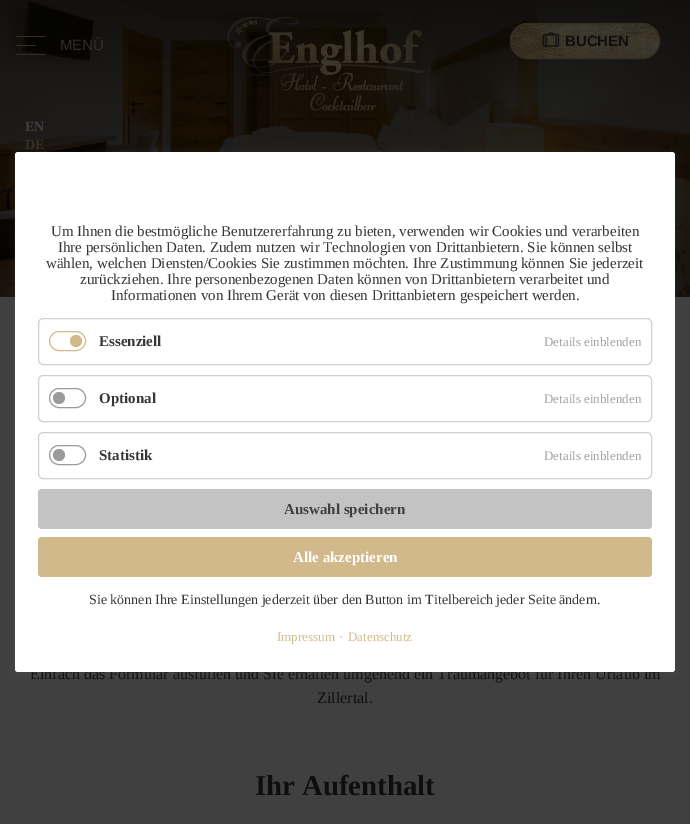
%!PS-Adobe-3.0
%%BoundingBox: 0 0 690 824
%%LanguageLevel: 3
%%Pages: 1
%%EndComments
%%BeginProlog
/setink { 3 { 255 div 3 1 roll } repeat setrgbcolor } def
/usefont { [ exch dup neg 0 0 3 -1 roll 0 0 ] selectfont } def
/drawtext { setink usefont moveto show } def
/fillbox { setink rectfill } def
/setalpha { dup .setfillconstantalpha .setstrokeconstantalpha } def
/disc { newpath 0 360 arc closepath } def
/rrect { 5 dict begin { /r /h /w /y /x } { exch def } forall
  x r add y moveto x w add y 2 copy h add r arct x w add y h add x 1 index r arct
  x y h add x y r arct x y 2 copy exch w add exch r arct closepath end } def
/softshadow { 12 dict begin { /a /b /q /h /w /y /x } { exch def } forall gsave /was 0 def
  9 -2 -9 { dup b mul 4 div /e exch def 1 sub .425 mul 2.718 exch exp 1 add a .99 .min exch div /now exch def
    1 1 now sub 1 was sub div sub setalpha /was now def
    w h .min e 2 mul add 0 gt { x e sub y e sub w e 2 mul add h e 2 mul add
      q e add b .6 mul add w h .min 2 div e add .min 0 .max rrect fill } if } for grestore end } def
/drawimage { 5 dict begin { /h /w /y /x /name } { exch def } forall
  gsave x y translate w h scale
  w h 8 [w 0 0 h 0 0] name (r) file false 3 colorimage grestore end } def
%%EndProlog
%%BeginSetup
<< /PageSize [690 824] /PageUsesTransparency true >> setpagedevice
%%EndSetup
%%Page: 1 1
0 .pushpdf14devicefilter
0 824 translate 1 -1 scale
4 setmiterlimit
0 0 690 824 64 64 64 fillbox
(assets/img4.rgb) 0 0 690 297 drawimage
16 45 20 1 52 46 35 fillbox
16 36 30 1 52 46 35 fillbox
16 54 30 1 52 46 35 fillbox
(MENÜ) 60 50 /LiberationSans-Regular 15 52 46 35 drawtext
(assets/img1.rgb) 227 17 198 94 drawimage
(assets/img2.rgb) 510 23 150 36 drawimage
510.5 23.5 149 35 17.5 rrect stroke
(assets/img3.rgb) 542 32 18 15 drawimage
(BUCHEN) 565 46 /LiberationSans-Bold 15 14 14 14 drawtext
(EN) 25 131 /LiberationSerif-Bold 14 64 64 64 drawtext
(DE) 25 149 /LiberationSerif-Bold 14 52 46 35 drawtext
(Einfach das Formular ausfüllen und Sie erhalten umgehend ein Traumangebot für Ihren Urlaub im) 30 679 /LiberationSerif-Regular 16 14 14 14 drawtext
(Zillertal.) 317 703 /LiberationSerif-Regular 16 14 14 14 drawtext
(Ihr Aufenthalt) 255 795 /LiberationSerif-Bold 28.75 14 14 14 drawtext
99 99 99 setink
15 154 660 520 3 4 0.2 softshadow
255 255 255 setink
15 152 660 520 3 rrect fill
(Um Ihnen die bestmögliche Benutzererfahrung zu bieten, verwenden wir Cookies und verarbeiten) 51 236 /LiberationSerif-Regular 15 54 54 54 drawtext
(Ihre persönlichen Daten. Zudem nutzen wir Technologien von Drittanbietern. Sie können selbst) 58 252 /LiberationSerif-Regular 15 54 54 54 drawtext
(wählen, welchen Diensten/Cookies Sie zustimmen möchten. Ihre Zustimmung können Sie jederzeit) 46 268 /LiberationSerif-Regular 15 54 54 54 drawtext
(zurückziehen. Ihre personenbezogenen Daten können von Drittanbietern verarbeitet und) 80 284 /LiberationSerif-Regular 15 54 54 54 drawtext
(Informationen von Ihrem Gerät von diesen Drittanbietern gespeichert werden.) 111 300 /LiberationSerif-Regular 15 54 54 54 drawtext
208 208 208 setink
38.5 318.5 613 46 4.5 rrect stroke
209 185 139 setink
49.5 331.5 36 19 9.5 rrect stroke
76 341 6 disc fill
(Essenziell) 99 346 /LiberationSerif-Bold 15 54 54 54 drawtext
(Details einblenden) 544 346 /LiberationSerif-Regular 13 162 162 162 drawtext
208 208 208 setink
38.5 375.5 613 46 4.5 rrect stroke
156 155 153 setink
49.5 388.5 36 19 9.5 rrect stroke
59 398 6 disc fill
(Optional) 99 403 /LiberationSerif-Bold 15 54 54 54 drawtext
(Details einblenden) 544 403 /LiberationSerif-Regular 13 162 162 162 drawtext
208 208 208 setink
38.5 432.5 613 46 4.5 rrect stroke
156 155 153 setink
49.5 445.5 36 19 9.5 rrect stroke
59 455 6 disc fill
(Statistik) 99 460 /LiberationSerif-Bold 15 54 54 54 drawtext
(Details einblenden) 544 460 /LiberationSerif-Regular 13 162 162 162 drawtext
195 195 195 setink
38 489 614 40 4 rrect fill
(Auswahl speichern) 284 514 /LiberationSerif-Bold 15 64 64 64 drawtext
209 185 139 setink
38 537 614 40 4 rrect fill
(Alle akzeptieren) 293 562 /LiberationSerif-Bold 15 255 255 255 drawtext
(Sie können Ihre Einstellungen jederzeit über den Button im Titelbereich jeder Seite ändern.) 89 604 /LiberationSerif-Regular 14 54 54 54 drawtext
(Impressum) 277 641 /LiberationSerif-Regular 13 209 185 139 drawtext
(·) 339 641 /LiberationSerif-Regular 13 209 185 139 drawtext
(Datenschutz) 348 641 /LiberationSerif-Regular 13 209 185 139 drawtext
.poppdf14devicefilter showpage
%%EOF
